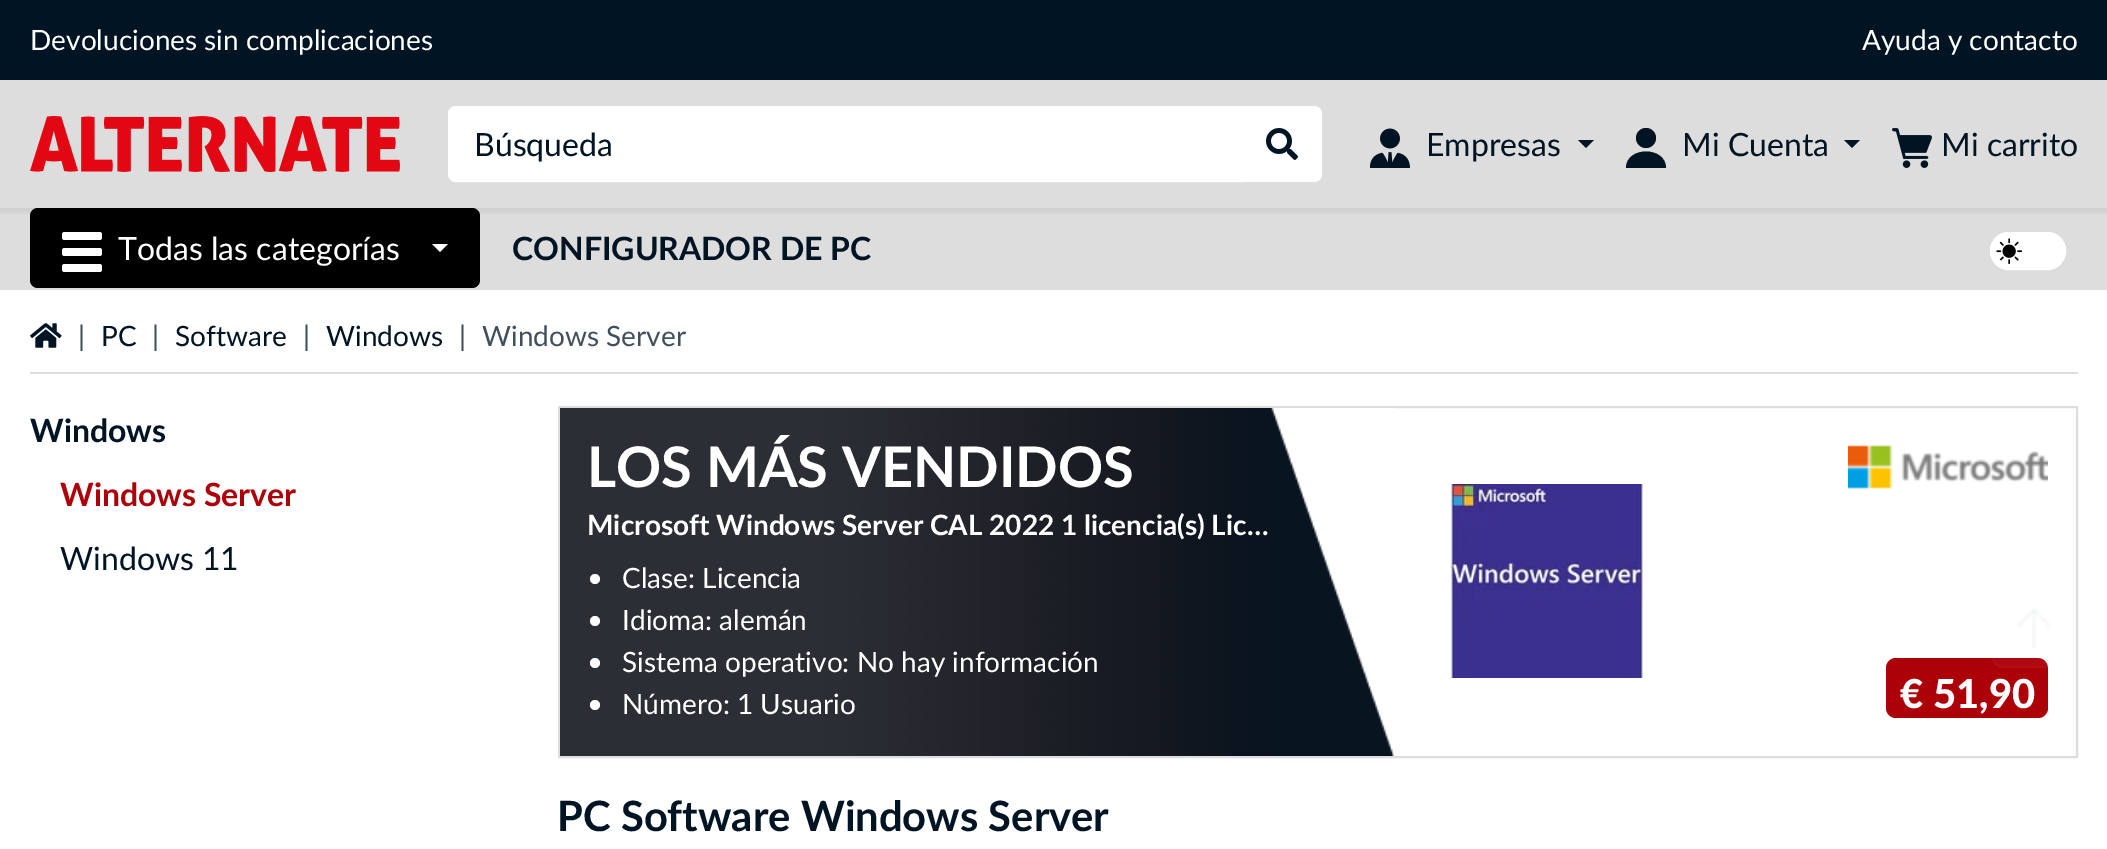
%!PS-Adobe-3.0
%%BoundingBox: 0 0 2107 849
%%LanguageLevel: 3
%%Pages: 1
%%EndComments
%%BeginProlog
/setink { 3 { 255 div 3 1 roll } repeat setrgbcolor } def
/usefont { [ exch dup neg 0 0 3 -1 roll 0 0 ] selectfont } def
/drawtext { setink usefont moveto show } def
/fillbox { setink rectfill } def
/setalpha { dup .setfillconstantalpha .setstrokeconstantalpha } def
/disc { newpath 0 360 arc closepath } def
/rrect { 5 dict begin { /r /h /w /y /x } { exch def } forall
  x r add y moveto x w add y 2 copy h add r arct x w add y h add x 1 index r arct
  x y h add x y r arct x y 2 copy exch w add exch r arct closepath end } def
/softshadow { 12 dict begin { /a /b /q /h /w /y /x } { exch def } forall gsave /was 0 def
  9 -2 -9 { dup b mul 4 div /e exch def 1 sub .425 mul 2.718 exch exp 1 add a .99 .min exch div /now exch def
    1 1 now sub 1 was sub div sub setalpha /was now def
    w h .min e 2 mul add 0 gt { x e sub y e sub w e 2 mul add h e 2 mul add
      q e add b .6 mul add w h .min 2 div e add .min 0 .max rrect fill } if } for grestore end } def
/drawimage { 5 dict begin { /h /w /y /x /name } { exch def } forall
  gsave x y translate w h scale
  w h 8 [w 0 0 h 0 0] name (r) file false 3 colorimage grestore end } def
%%EndProlog
%%BeginSetup
<< /PageSize [2107 849] /PageUsesTransparency true >> setpagedevice
%%EndSetup
%%Page: 1 1
0 .pushpdf14devicefilter
0 849 translate 1 -1 scale
4 setmiterlimit
0 0 2107 849 255 255 255 fillbox
0 0 2107 80 0 20 36 fillbox
(Devoluciones sin complicaciones) 30 50 /Lato-Regular 28 255 255 255 drawtext
(Ayuda y contacto) 1862 50 /Lato-Regular 28 255 255 255 drawtext
0 80 2107 210 221 221 221 fillbox
gsave
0 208 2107 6 rectclip
0 0 0 setink
0 84 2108 128 0 4 0.07 softshadow
grestore
(assets/img1.rgb) 30 116 370 56 drawimage
255 255 255 setink
456 107 moveto 1241 107 lineto 1241 181 lineto 456 181 lineto 452 181 449 178 449 174 curveto 449 114 lineto 449 110 452 107 456 107 curveto closepath gsave fill grestore
2 setlinewidth
stroke
(Búsqueda) 474 156 /Lato-Regular 32 0 20 36 drawtext
255 255 255 setink
1242 106 moveto 1314 106 lineto 1318.5 106 1322 109.5 1322 114 curveto 1322 174 lineto 1322 178.5 1318.5 182 1314 182 curveto 1242 182 lineto closepath fill
(assets/img2.rgb) 1266 128 32 32 drawimage
(assets/img3.rgb) 1370 128 40 40 drawimage
(Empresas) 1426 156 /Lato-Regular 32 0 20 36 drawtext
1578 140 moveto 1594 140 lineto 1586 148 lineto closepath fill
1646 138 10 disc fill
(Mi Cuenta) 1682 156 /Lato-Regular 32 0 20 36 drawtext
1844 140 moveto 1860 140 lineto 1852 148 lineto closepath fill
1666 168 moveto 1626 168 lineto 1626 146 1666 146 1666 168 curveto fill
(assets/img4.rgb) 1892 128 40 40 drawimage
(Mi carrito) 1941 156 /Lato-Regular 32 0 20 36 drawtext
0 0 0 setink
30 208 450 80 8 rrect fill
255 255 255 setink
62 232 40 8 2.5 rrect fill
(Todas las categorías) 118 260 /Lato-Regular 32 255 255 255 drawtext
432 244 moveto 448 244 lineto 440 252 lineto closepath fill
62 248 40 8 2.5 rrect fill
62 264 40 8 2.5 rrect fill
(CONFIGURADOR DE PC) 512 260 /Lato-Bold 32 0 20 36 drawtext
255 255 255 setink
1990 232 76 38 19 rrect fill
(assets/img5.rgb) 1996 238 26 26 drawimage
6 setlinewidth
1993 235 70 32 16 rrect stroke
30 372 2048 2 221 221 221 fillbox
(assets/img6.rgb) 30 323 32 25 drawimage
(|) 78 346 /Lato-Regular 28 64 79 91 drawtext
(PC) 101 346 /Lato-Regular 28 0 20 36 drawtext
(|) 152 346 /Lato-Regular 28 64 79 91 drawtext
(Software) 175 346 /Lato-Regular 28 0 20 36 drawtext
(|) 303 346 /Lato-Regular 28 64 79 91 drawtext
(Windows) 326 346 /Lato-Regular 28 0 20 36 drawtext
(|) 459 346 /Lato-Regular 28 64 79 91 drawtext
(Windows Server) 482 346 /Lato-Regular 28 64 79 91 drawtext
(Windows) 30 442 /Lato-Bold 32 0 20 36 drawtext
(Windows Server) 60 506 /Lato-Bold 32 173 1 9 drawtext
(Windows 11) 60 570 /Lato-Regular 32 0 20 36 drawtext
221 221 221 setink
2 setlinewidth
559 407 1518 350 rectstroke
(assets/img7.rgb) 560 408 834 348 drawimage
(LOS MÁS VENDIDOS) 587 487 /Lato-Bold 56 255 255 255 drawtext
(Microsoft Windows Server CAL 2022 1 licencia\(s\) Lic…) 587 535 /Lato-Bold 28 255 255 255 drawtext
595 579 5 disc fill
(Clase: Licencia) 622 588 /Lato-Regular 28 255 255 255 drawtext
595 621 5 disc fill
(Idioma: alemán) 622 630 /Lato-Regular 28 255 255 255 drawtext
595 663 5 disc fill
(Sistema operativo: No hay información) 622 672 /Lato-Regular 28 255 255 255 drawtext
595 705 5 disc fill
(Número: 1 Usuario) 622 714 /Lato-Regular 28 255 255 255 drawtext
(assets/img8.rgb) 1848 445 200 44 drawimage
(assets/img9.rgb) 1450 484 194 194 drawimage
173 1 9 setink
1886 658 162 60 10 rrect fill
(€ 51,90) 1900 708 /Lato-Black 40 255 255 255 drawtext
(PC Software Windows Server) 557 831 /Lato-Bold 41.75 0 20 36 drawtext
(assets/img10.rgb) 1992 607 59 61 drawimage
.poppdf14devicefilter showpage
%%EOF
